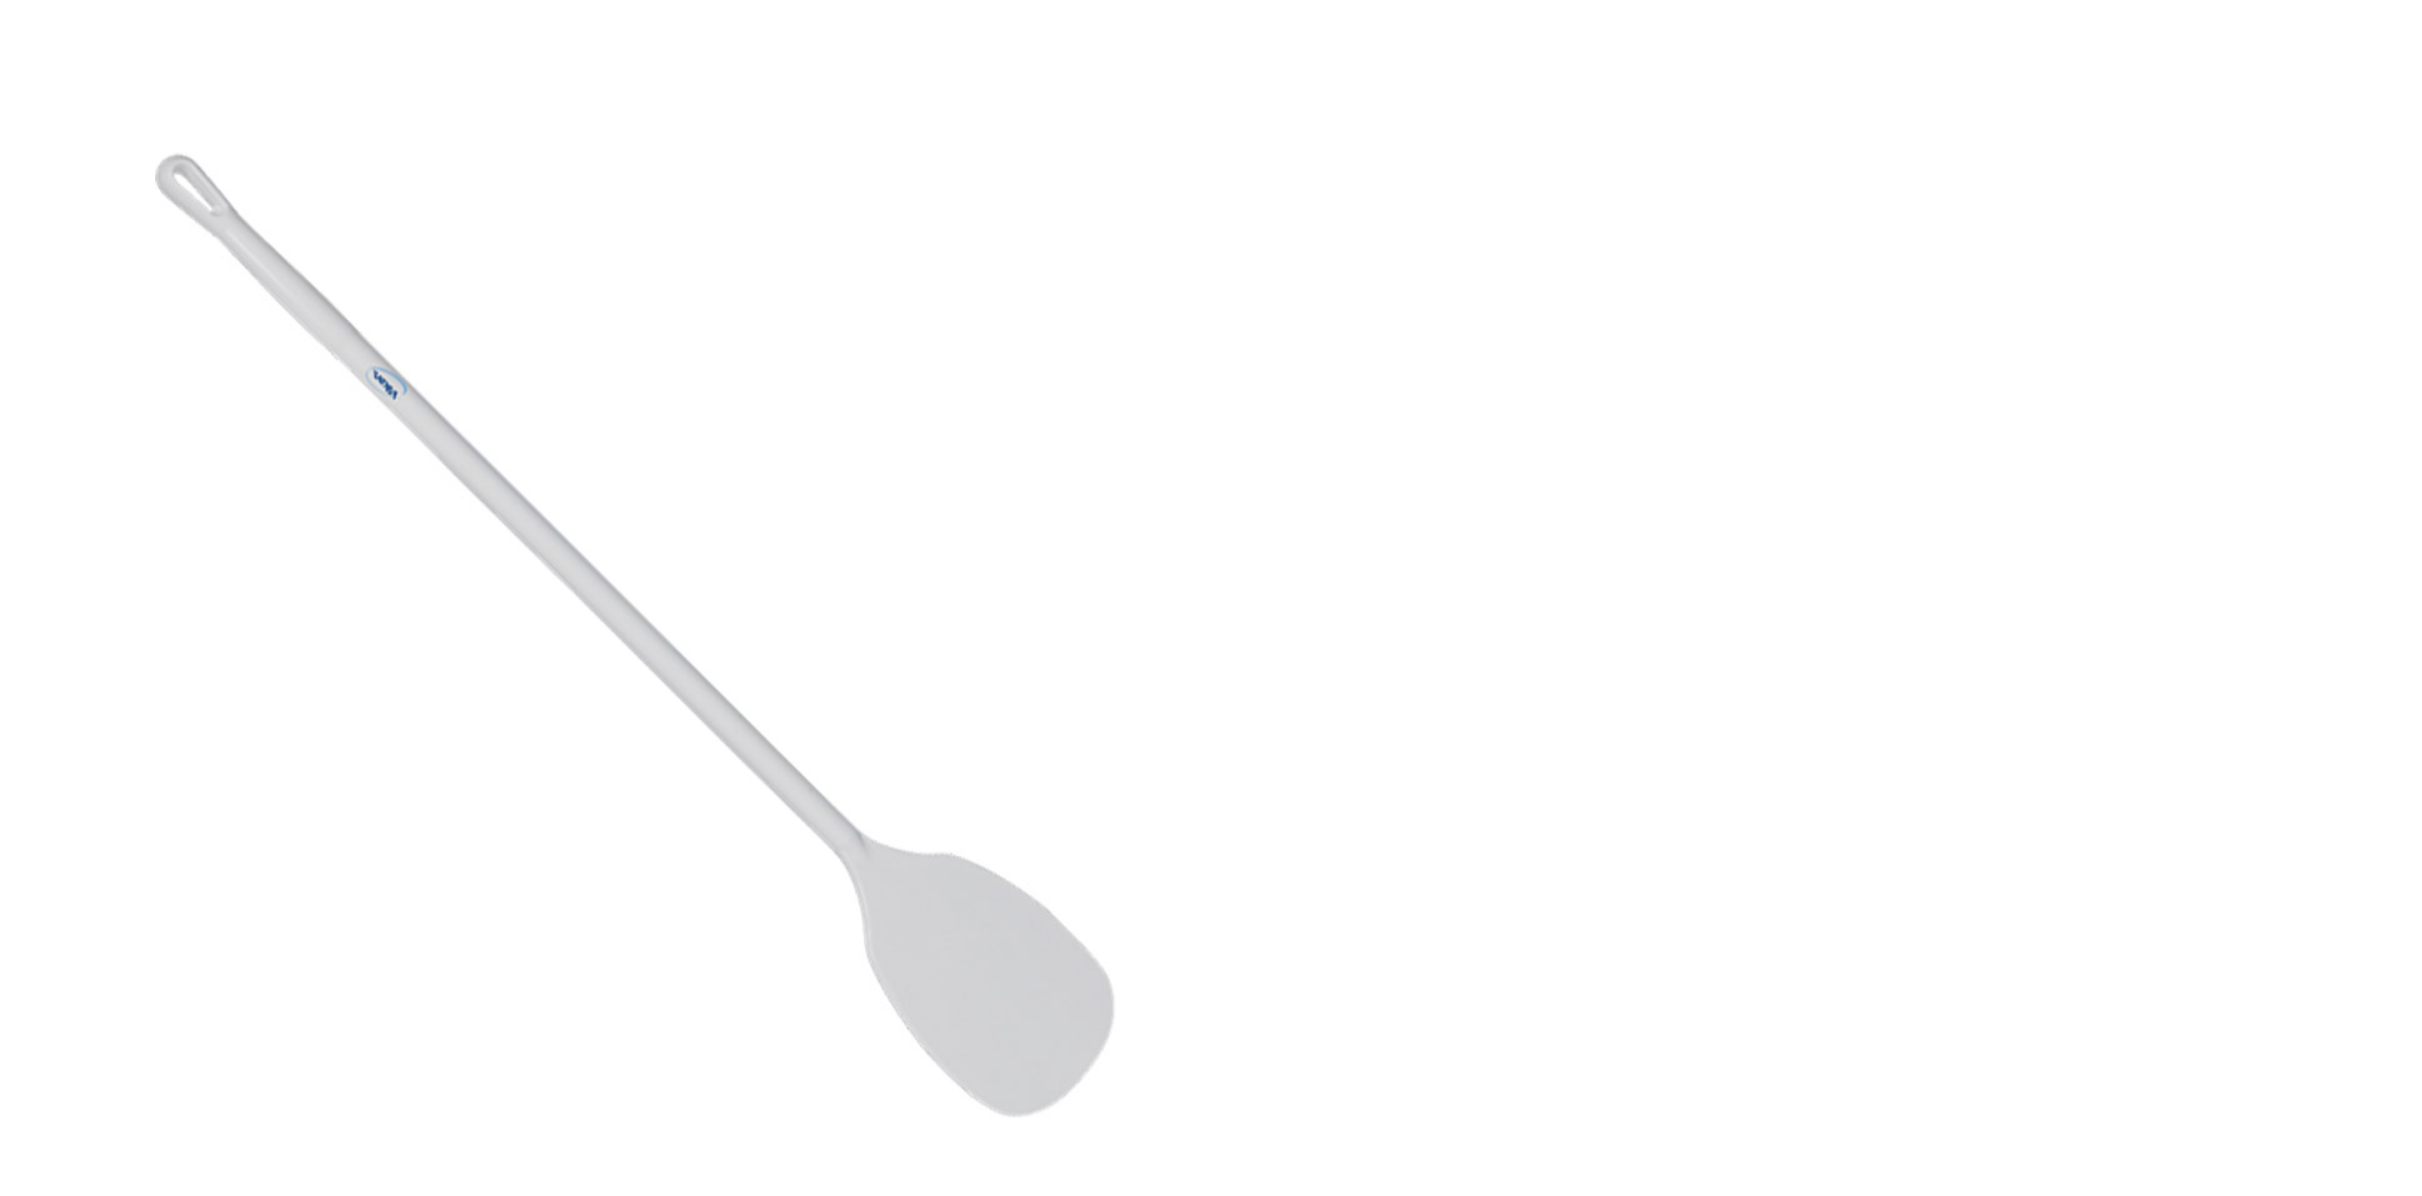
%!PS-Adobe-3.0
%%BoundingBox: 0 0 2422 1196
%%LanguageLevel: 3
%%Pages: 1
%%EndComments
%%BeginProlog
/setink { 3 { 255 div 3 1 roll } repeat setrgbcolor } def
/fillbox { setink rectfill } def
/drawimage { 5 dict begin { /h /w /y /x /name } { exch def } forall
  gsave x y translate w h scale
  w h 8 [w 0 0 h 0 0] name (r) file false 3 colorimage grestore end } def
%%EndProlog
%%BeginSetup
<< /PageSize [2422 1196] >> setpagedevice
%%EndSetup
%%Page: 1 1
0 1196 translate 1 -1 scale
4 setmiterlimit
0 0 2422 1196 255 255 255 fillbox
(assets/img1.rgb) 155 152 961 966 drawimage
showpage
%%EOF
